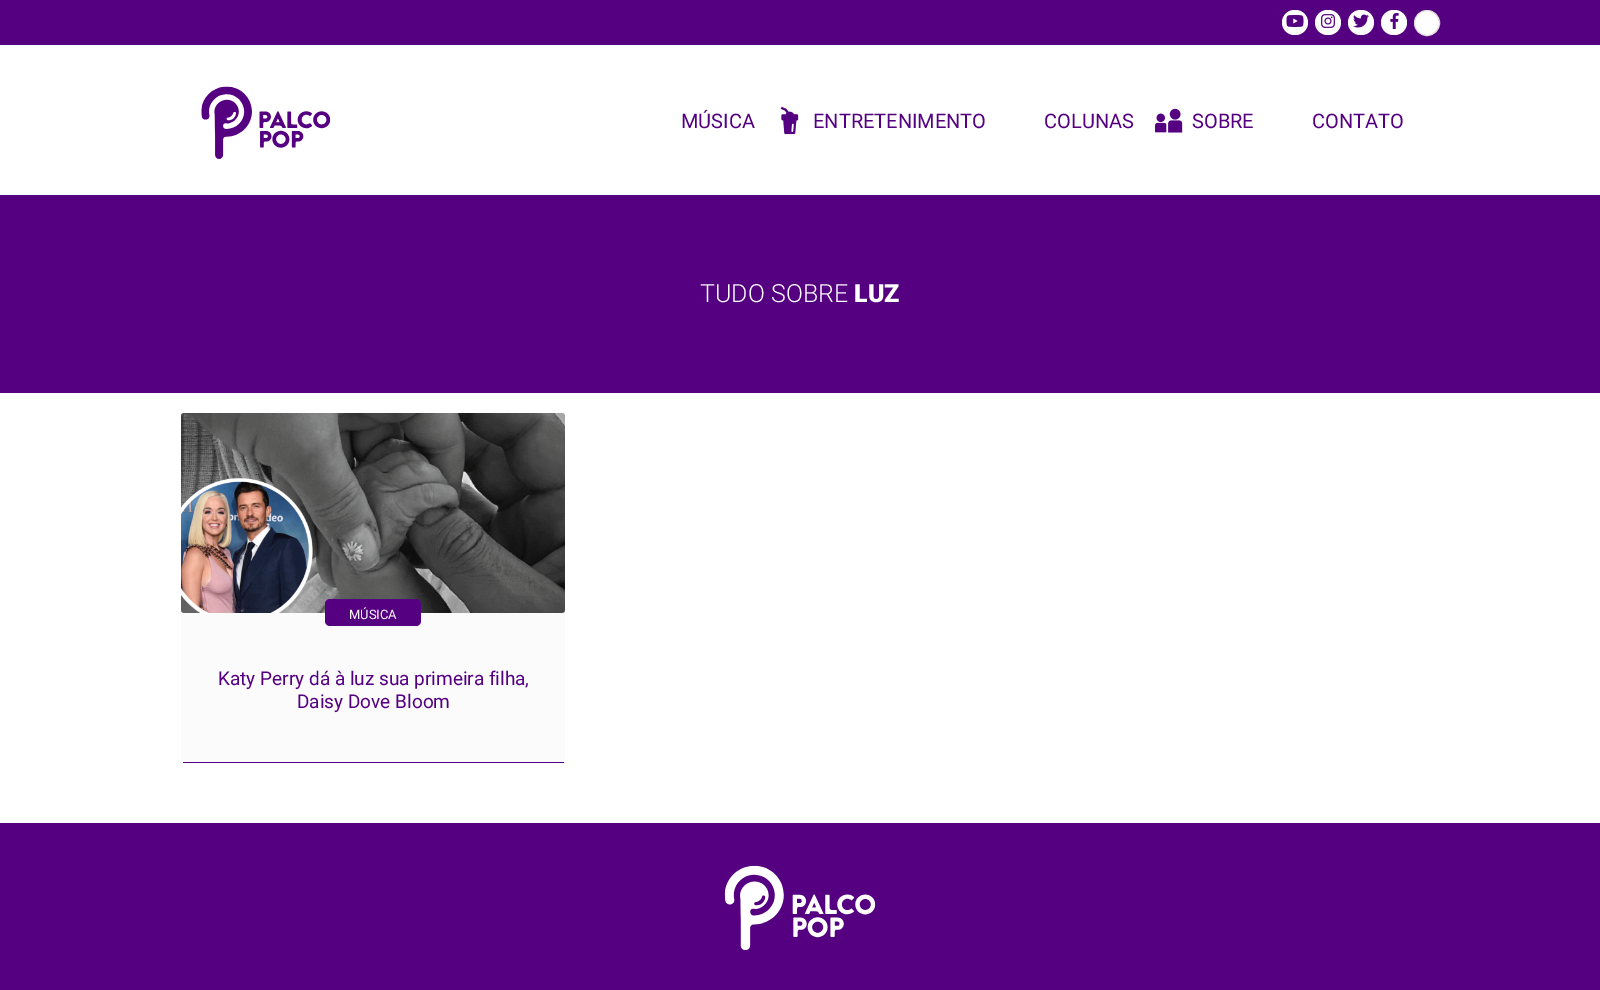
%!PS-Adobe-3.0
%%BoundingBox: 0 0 1600 990
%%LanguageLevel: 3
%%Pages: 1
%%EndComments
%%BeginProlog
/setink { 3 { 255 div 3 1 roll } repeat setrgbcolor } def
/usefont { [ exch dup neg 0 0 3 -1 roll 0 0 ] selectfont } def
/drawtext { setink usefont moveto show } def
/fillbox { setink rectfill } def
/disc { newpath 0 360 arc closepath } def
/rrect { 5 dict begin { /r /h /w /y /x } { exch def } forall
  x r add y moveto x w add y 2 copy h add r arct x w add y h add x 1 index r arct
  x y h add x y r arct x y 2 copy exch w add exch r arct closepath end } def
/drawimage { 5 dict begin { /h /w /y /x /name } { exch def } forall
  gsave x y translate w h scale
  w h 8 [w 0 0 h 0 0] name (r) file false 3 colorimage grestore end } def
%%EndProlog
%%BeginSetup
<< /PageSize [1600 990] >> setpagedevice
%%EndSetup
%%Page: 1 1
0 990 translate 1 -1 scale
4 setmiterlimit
0 0 1600 990 255 255 255 fillbox
0 0 1600 45 85 0 129 fillbox
255 255 255 setink
1282 10 26 25 12.5 rrect fill
(assets/img1.rgb) 1286 15 18 12 drawimage
1315 10 26 25 12.5 rrect fill
(assets/img2.rgb) 1321 14 14 14 drawimage
1348 10 26 25 12.5 rrect fill
(assets/img3.rgb) 1353 14 16 14 drawimage
1381 10 26 25 12.5 rrect fill
(assets/img4.rgb) 1390 13 9 16 drawimage
1427 23 12.5 disc gsave fill grestore
221 221 221 setink
stroke
(assets/img5.rgb) 201 86 130 73 drawimage
(MÚSICA) 681 128 /Roboto-Regular 20 85 0 129 drawtext
(assets/img6.rgb) 780 107 19 28 drawimage
(ENTRETENIMENTO) 813 128 /Roboto-Regular 20 85 0 129 drawtext
(COLUNAS) 1044 128 /Roboto-Regular 20 85 0 129 drawtext
(assets/img7.rgb) 1155 108 28 25 drawimage
(SOBRE) 1192 128 /Roboto-Regular 20 85 0 129 drawtext
(CONTATO) 1312 128 /Roboto-Regular 20 85 0 129 drawtext
0 195 1600 198 85 0 129 fillbox
(TUDO SOBRE) 700 302 /Roboto-Light 25 255 255 255 drawtext
(LUZ) 854 302 /Roboto-Black 25 255 255 255 drawtext
251 251 251 setink
181 413 384 350 3 rrect fill
183 762 381 1 85 0 129 fillbox
(assets/img8.rgb) 181 413 384 200 drawimage
325 599 96 27 5 rrect fill
(MÚSICA) 349 619 /Roboto-Regular 13 255 255 255 drawtext
(Katy Perry dá à luz sua primeira filha,) 218 685 /Roboto-Regular 19 85 0 129 drawtext
(Daisy Dove Bloom) 297 708 /Roboto-Regular 19 85 0 129 drawtext
0 823 1600 167 85 0 129 fillbox
(assets/img9.rgb) 724 865 152 86 drawimage
showpage
%%EOF
